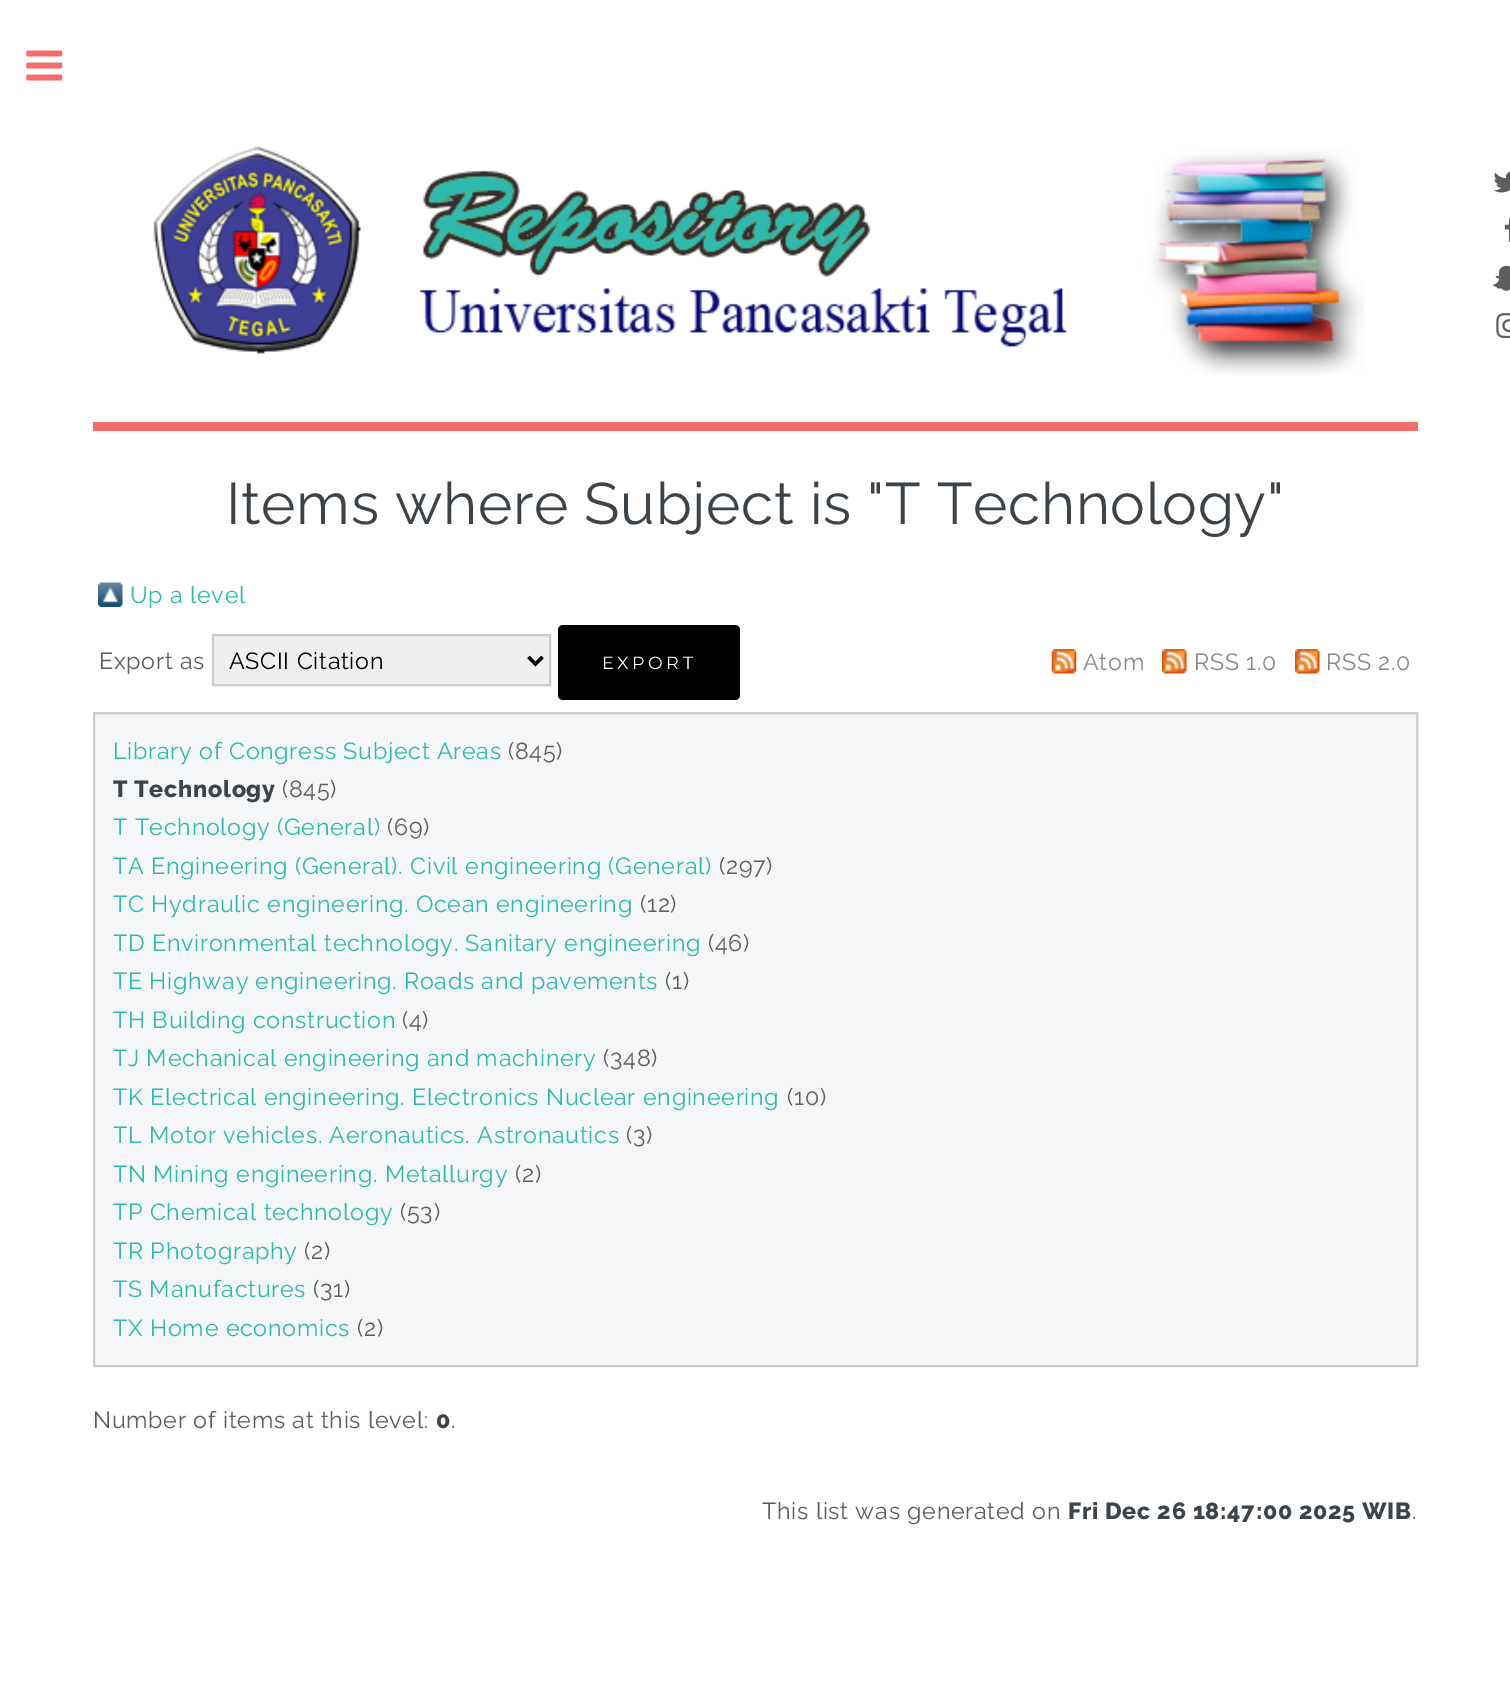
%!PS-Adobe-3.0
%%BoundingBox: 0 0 1510 1705
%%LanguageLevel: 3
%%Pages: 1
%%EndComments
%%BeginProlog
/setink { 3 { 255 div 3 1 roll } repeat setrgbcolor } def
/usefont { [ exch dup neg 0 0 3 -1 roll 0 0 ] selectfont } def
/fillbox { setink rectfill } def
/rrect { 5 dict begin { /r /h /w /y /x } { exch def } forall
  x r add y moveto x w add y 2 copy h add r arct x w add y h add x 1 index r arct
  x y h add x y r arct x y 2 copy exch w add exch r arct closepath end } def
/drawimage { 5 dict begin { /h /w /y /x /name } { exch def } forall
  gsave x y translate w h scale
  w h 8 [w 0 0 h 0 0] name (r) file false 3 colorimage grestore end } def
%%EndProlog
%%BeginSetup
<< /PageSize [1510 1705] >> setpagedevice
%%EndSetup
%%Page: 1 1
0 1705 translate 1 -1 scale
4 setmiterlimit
0 0 1510 1705 255 255 255 fillbox
(assets/img1.rgb) 26 50 37 31 drawimage
93 422 1325 9 245 106 106 fillbox
(assets/img2.rgb) 153 146 1212 230 drawimage
(assets/img3.rgb) 1493 171 17 22 drawimage
(assets/img4.rgb) 1504 217 6 25 drawimage
(assets/img5.rgb) 1493 265 17 26 drawimage
(assets/img6.rgb) 1496 313 14 26 drawimage
/Raleway-Regular 58.3 usefont
61 68 73 setink
226 524 moveto 0.7 0 (Items where Subject is "T Technology") ashow
(assets/img7.rgb) 98 582 25 25 drawimage
/Raleway-Regular 23.3 usefont
46 186 174 setink
130 603 moveto 0.7 0 (Up a level) ashow
93 93 93 setink
99 669 moveto 0.7 0 (Export as) ashow
239 239 239 setink
213 635 moveto 550 635 lineto 550 685 lineto 213 685 lineto closepath gsave fill grestore
204 204 204 setink
2 setlinewidth
stroke
0 0 0 setink
3.5 setlinewidth
528.5 657 moveto 535.5 664 lineto 542.5 657 lineto stroke
229 669 moveto 0.7 0 (ASCII Citation) ashow
558 625 182 75 5 rrect fill
/Montserrat-Regular 17.5 usefont
255 255 255 setink
602 669 moveto 3.5 0 (EXPORT) ashow
(assets/img8.rgb) 1051 649 26 25 drawimage
/Raleway-Regular 23.3 usefont
136 136 136 setink
1083 670 moveto 0.7 0 (Atom) ashow
(assets/img9.rgb) 1162 649 25 25 drawimage
1194 670 moveto 0.7 0 (RSS 1.0) ashow
(assets/img10.rgb) 1295 649 25 25 drawimage
1326 670 moveto 0.7 0 (RSS 2.0) ashow
245 246 247 setink
94 713 moveto 1417 713 lineto 1417 1366 lineto 94 1366 lineto closepath gsave fill grestore
204 204 204 setink
2 setlinewidth
stroke
46 186 174 setink
113 759 moveto 0.7 0 (Library of Congress Subject Areas) ashow
93 93 93 setink
508 759 moveto 0.7 0 (\(845\)) ashow
/Raleway-ExtraBold 23.3 usefont
61 68 73 setink
113 797 moveto 0.7 0 (T Technology) ashow
/Raleway-Regular 23.3 usefont
93 93 93 setink
282 797 moveto 0.7 0 (\(845\)) ashow
46 186 174 setink
113 835 moveto 0.7 0 (T Technology \(General\)) ashow
93 93 93 setink
387 835 moveto 0.7 0 (\(69\)) ashow
46 186 174 setink
113 874 moveto 0.7 0 (TA Engineering \(General\). Civil engineering \(General\)) ashow
93 93 93 setink
719 874 moveto 0.7 0 (\(297\)) ashow
46 186 174 setink
113 912 moveto 0.7 0 (TC Hydraulic engineering. Ocean engineering) ashow
93 93 93 setink
640 912 moveto 0.7 0 (\(12\)) ashow
46 186 174 setink
113 951 moveto 0.7 0 (TD Environmental technology. Sanitary engineering) ashow
93 93 93 setink
708 951 moveto 0.7 0 (\(46\)) ashow
46 186 174 setink
113 989 moveto 0.7 0 (TE Highway engineering. Roads and pavements) ashow
93 93 93 setink
665 989 moveto 0.7 0 (\(1\)) ashow
46 186 174 setink
113 1028 moveto 0.7 0 (TH Building construction) ashow
93 93 93 setink
402 1028 moveto 0.7 0 (\(4\)) ashow
46 186 174 setink
113 1066 moveto 0.7 0 (TJ Mechanical engineering and machinery) ashow
93 93 93 setink
603 1066 moveto 0.7 0 (\(348\)) ashow
46 186 174 setink
113 1105 moveto 0.7 0 (TK Electrical engineering. Electronics Nuclear engineering) ashow
93 93 93 setink
787 1105 moveto 0.7 0 (\(10\)) ashow
46 186 174 setink
113 1143 moveto 0.7 0 (TL Motor vehicles. Aeronautics. Astronautics) ashow
93 93 93 setink
626 1143 moveto 0.7 0 (\(3\)) ashow
46 186 174 setink
113 1182 moveto 0.7 0 (TN Mining engineering. Metallurgy) ashow
93 93 93 setink
515 1182 moveto 0.7 0 (\(2\)) ashow
46 186 174 setink
113 1220 moveto 0.7 0 (TP Chemical technology) ashow
93 93 93 setink
400 1220 moveto 0.7 0 (\(53\)) ashow
46 186 174 setink
113 1259 moveto 0.7 0 (TR Photography) ashow
93 93 93 setink
304 1259 moveto 0.7 0 (\(2\)) ashow
46 186 174 setink
113 1297 moveto 0.7 0 (TS Manufactures) ashow
93 93 93 setink
313 1297 moveto 0.7 0 (\(31\)) ashow
46 186 174 setink
113 1336 moveto 0.7 0 (TX Home economics) ashow
93 93 93 setink
357 1336 moveto 0.7 0 (\(2\)) ashow
93 1428 moveto 0.7 0 (Number of items at this level:) ashow
/Raleway-ExtraBold 23.3 usefont
61 68 73 setink
436 1428 moveto 0.7 0 (0) ashow
/Raleway-Regular 23.3 usefont
93 93 93 setink
451 1428 moveto 0.7 0 (.) ashow
762 1519 moveto 0.7 0 (This list was generated on) ashow
/Raleway-ExtraBold 23.3 usefont
61 68 73 setink
1068 1519 moveto 0.7 0 (Fri Dec 26 18:47:00 2025 WIB) ashow
/Raleway-Regular 23.3 usefont
93 93 93 setink
1412 1519 moveto 0.7 0 (.) ashow
showpage
%%EOF
